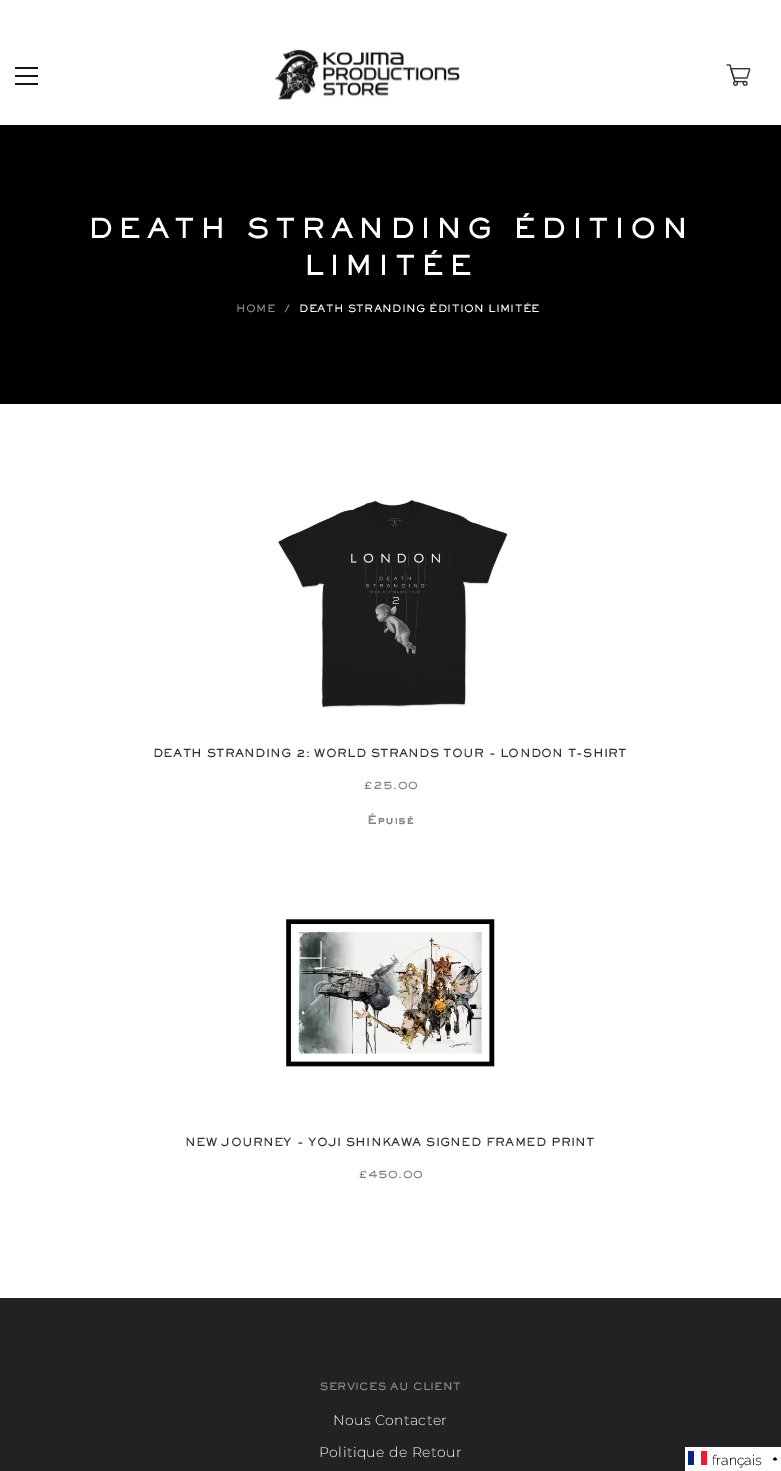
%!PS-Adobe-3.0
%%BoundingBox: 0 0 781 1471
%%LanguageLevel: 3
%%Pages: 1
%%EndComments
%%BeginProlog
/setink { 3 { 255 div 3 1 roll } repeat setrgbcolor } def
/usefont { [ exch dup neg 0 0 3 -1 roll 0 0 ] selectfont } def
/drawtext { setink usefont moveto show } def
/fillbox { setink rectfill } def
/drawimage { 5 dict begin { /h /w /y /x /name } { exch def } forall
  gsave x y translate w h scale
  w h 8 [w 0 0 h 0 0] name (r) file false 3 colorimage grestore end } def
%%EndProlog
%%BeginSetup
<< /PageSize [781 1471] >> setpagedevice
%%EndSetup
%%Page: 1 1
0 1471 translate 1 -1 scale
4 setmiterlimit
0 0 781 1471 255 255 255 fillbox
15 67 23 2 20 19 19 fillbox
15 75 23 2 20 19 19 fillbox
15 83 23 2 20 19 19 fillbox
(assets/img1.rgb) 275 49 185 51 drawimage
(assets/img2.rgb) 726 64 25 22 drawimage
0 125 781 279 0 0 0 fillbox
/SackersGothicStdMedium-Bold 26 usefont
255 255 255 setink
88 238 moveto 6.2 0 (DEATH STRANDING ÉDITION) ashow
304 275 moveto 6.2 0 (LIMITÉE) ashow
/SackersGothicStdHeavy-Regular 10 usefont
141 141 141 setink
236 312 moveto 0.3 0 (HOME) ashow
284 312 moveto 0.3 0 (/) ashow
255 255 255 setink
299 312 moveto 0.3 0 (DEATH STRANDING ÉDITION LIMITÉE) ashow
(assets/img3.rgb) 278 500 230 208 drawimage
/SackersGothicStdHeavy-Regular 11 usefont
51 50 50 setink
153 757 moveto 0.3 0 (DEATH STRANDING 2: WORLD STRANDS TOUR - LONDON T-SHIRT) ashow
132 132 132 setink
363 789 moveto 0.3 0 (£25.00) ashow
/SackersGothicStdHeavy-Bold 11 usefont
367 824 moveto 0.3 0 (Épuisé) ashow
(assets/img4.rgb) 286 919 209 148 drawimage
/SackersGothicStdHeavy-Regular 11 usefont
51 50 50 setink
185 1146 moveto 0.3 0 (NEW JOURNEY - YOJI SHINKAWA SIGNED FRAMED PRINT) ashow
132 132 132 setink
358 1178 moveto 0.3 0 (£450.00) ashow
0 1298 781 173 34 34 34 fillbox
/SackersGothicStdHeavy-Regular 10 usefont
141 141 141 setink
320 1390 moveto 0.3 0 (SERVICES AU CLIENT) ashow
/Montserrat-Thin 14 usefont
255 255 255 setink
333 1425 moveto 0.4 0 (Nous Contacter) ashow
319 1457 moveto 0.4 0 (Politique de Retour) ashow
685 1447 96 24 255 255 255 fillbox
688 1451 6 14 0 38 127 fillbox
701 1451 6 14 243 24 48 fillbox
(français) 712 1465 /Raleway-Light 14 0 0 0 drawtext
2 setlinewidth
776.5 1460 moveto 775 1458.5 lineto 773.5 1460 lineto stroke
showpage
%%EOF
